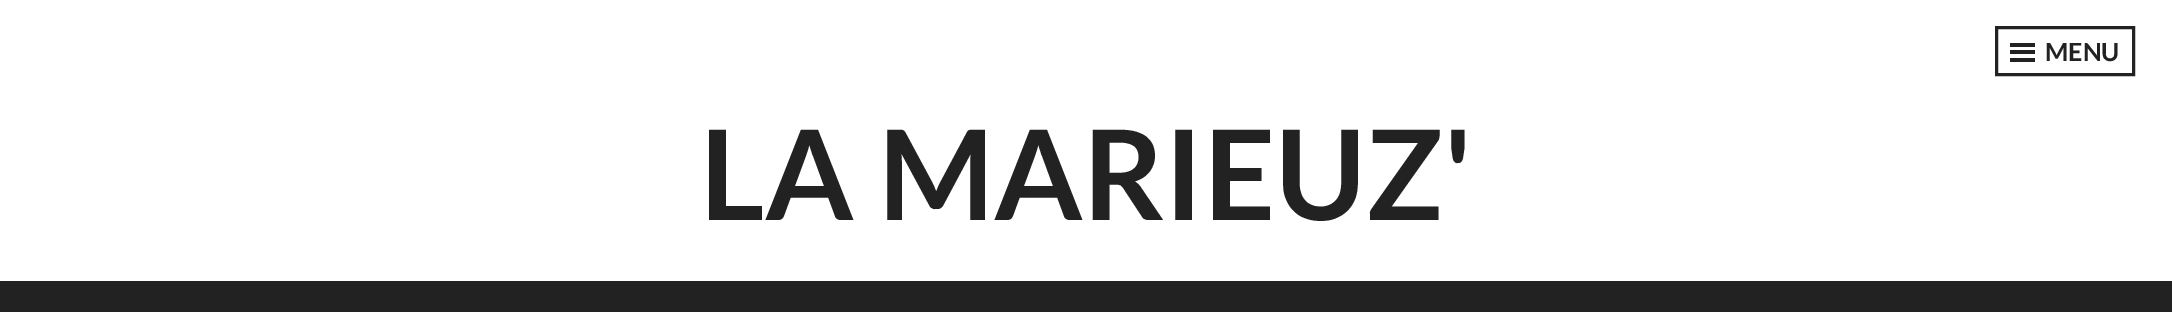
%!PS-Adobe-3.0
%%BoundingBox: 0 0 2172 312
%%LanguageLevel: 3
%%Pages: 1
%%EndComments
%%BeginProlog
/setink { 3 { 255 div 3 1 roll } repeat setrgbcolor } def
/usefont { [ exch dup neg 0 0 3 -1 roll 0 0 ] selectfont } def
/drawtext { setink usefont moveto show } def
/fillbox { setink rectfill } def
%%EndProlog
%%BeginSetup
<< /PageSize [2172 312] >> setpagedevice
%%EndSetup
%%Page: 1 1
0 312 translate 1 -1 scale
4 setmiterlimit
0 0 2172 312 255 255 255 fillbox
34 34 34 setink
3 setlinewidth
1996.5 27.5 137 47 rectstroke
2010 50 25 4 34 34 34 fillbox
2010 43 25 4 34 34 34 fillbox
2010 58 25 4 34 34 34 fillbox
(MENU) 2045 61 /Lato-Bold 25 34 34 34 drawtext
(LA MARIEUZ') 700 220 /Lato-Bold 125 34 34 34 drawtext
0 281 2172 31 34 34 34 fillbox
showpage
%%EOF
